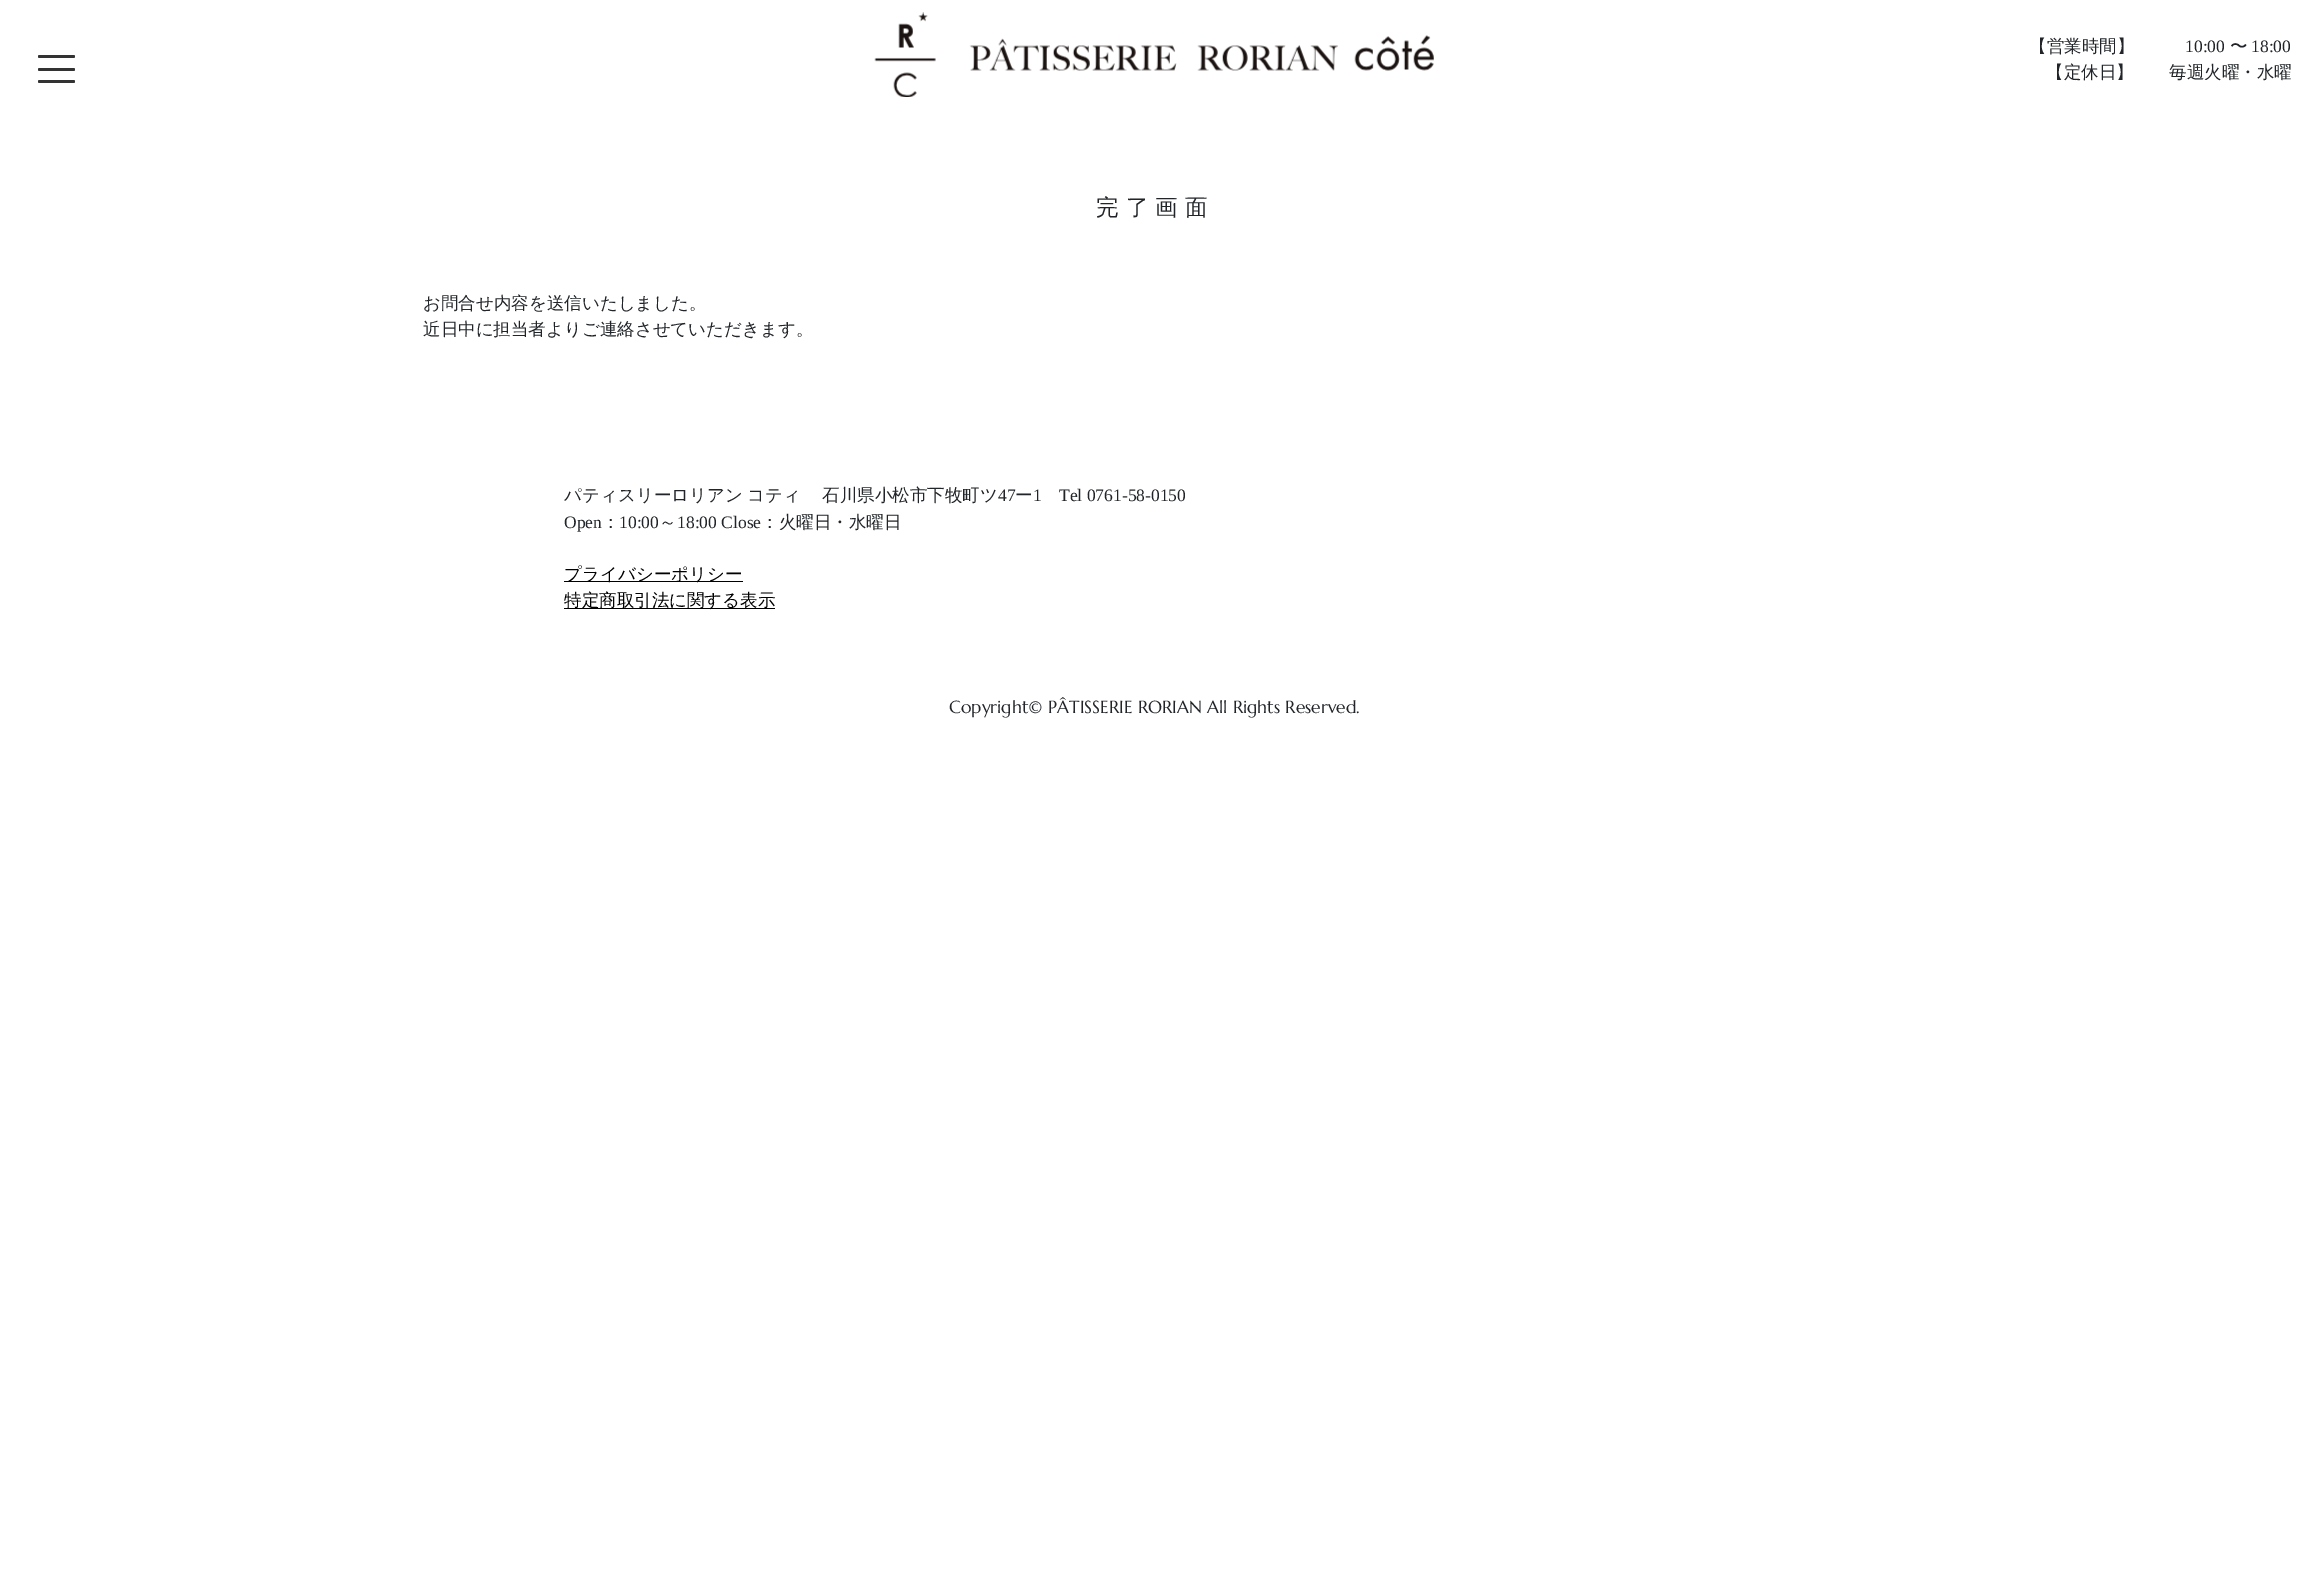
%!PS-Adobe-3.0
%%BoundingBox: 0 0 2308 1587
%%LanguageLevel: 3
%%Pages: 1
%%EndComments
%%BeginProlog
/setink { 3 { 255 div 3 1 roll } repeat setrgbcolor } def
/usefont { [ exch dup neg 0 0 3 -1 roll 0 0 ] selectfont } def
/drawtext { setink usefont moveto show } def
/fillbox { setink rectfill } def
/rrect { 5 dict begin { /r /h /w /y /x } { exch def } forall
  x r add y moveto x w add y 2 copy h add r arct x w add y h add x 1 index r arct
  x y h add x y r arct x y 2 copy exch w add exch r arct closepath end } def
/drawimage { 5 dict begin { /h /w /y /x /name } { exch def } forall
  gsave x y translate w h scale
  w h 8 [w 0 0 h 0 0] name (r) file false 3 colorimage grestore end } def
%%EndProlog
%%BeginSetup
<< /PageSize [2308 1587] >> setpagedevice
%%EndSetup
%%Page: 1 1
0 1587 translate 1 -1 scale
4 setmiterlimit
0 0 2308 1587 255 255 255 fillbox
51 51 51 setink
38 55 37 3 1.5 rrect fill
38 68 37 3 1.5 rrect fill
38 80 37 3 1.5 rrect fill
(assets/img1.rgb) 874 12 560 85 drawimage
(【営業時間】) 2029 52 /WenQuanYiZenHei-Medium 17.5 33 37 41 drawtext
(10:00) 2185 52 /LiberationSerif-Regular 17.5 33 37 41 drawtext
(〜) 2230 52 /WenQuanYiZenHei-Medium 17.5 33 37 41 drawtext
(18:00) 2251 52 /LiberationSerif-Regular 17.5 33 37 41 drawtext
(【定休日】) 2046 78 /WenQuanYiZenHei-Medium 17.5 33 37 41 drawtext
(毎週火曜・水曜) 2169 78 /WenQuanYiZenHei-Medium 17.5 33 37 41 drawtext
/WenQuanYiZenHei-Medium 22.5 usefont
1096 215 moveto 7 0 (完了画面) ashow
(お問合せ内容を送信いたしました。) 423 309 /WenQuanYiZenHei-Medium 17.5 33 37 41 drawtext
(近日中に担当者よりご連絡させていただきます。) 423 335 /WenQuanYiZenHei-Medium 17.5 33 37 41 drawtext
564 501 moveto -1 0 32 (パティスリーロリアン コティ) widthshow
(石川県小松市下牧町ツ) 822 501 /WenQuanYiZenHei-Medium 17.5 33 37 41 drawtext
(47) 998 501 /LiberationSerif-Regular 17.5 33 37 41 drawtext
(ー) 1015 501 /WenQuanYiZenHei-Medium 17.5 33 37 41 drawtext
(1) 1033 501 /LiberationSerif-Regular 17.5 33 37 41 drawtext
(Tel 0761-58-0150) 1059 501 /LiberationSerif-Regular 17.5 33 37 41 drawtext
(Open) 564 528 /LiberationSerif-Regular 17.5 33 37 41 drawtext
(：) 602 528 /WenQuanYiZenHei-Medium 17.5 33 37 41 drawtext
(10:00) 619 528 /LiberationSerif-Regular 17.5 33 37 41 drawtext
(～) 659 528 /WenQuanYiZenHei-Medium 17.5 33 37 41 drawtext
(18:00 Close) 677 528 /LiberationSerif-Regular 17.5 33 37 41 drawtext
(：火曜日・水曜日) 761 528 /WenQuanYiZenHei-Medium 17.5 33 37 41 drawtext
564 581 179 1 0 0 0 fillbox
(プライバシーポリシー) 564 580 /WenQuanYiZenHei-Medium 17.5 0 0 0 drawtext
564 608 211 1 0 0 0 fillbox
(特定商取引法に関する表示) 564 606 /WenQuanYiZenHei-Medium 17.5 0 0 0 drawtext
(Copyright© PÂTISSERIE RORIAN All Rights Reserved.) 949 713 /Marcellus-Regular 17.5 33 37 41 drawtext
showpage
%%EOF
